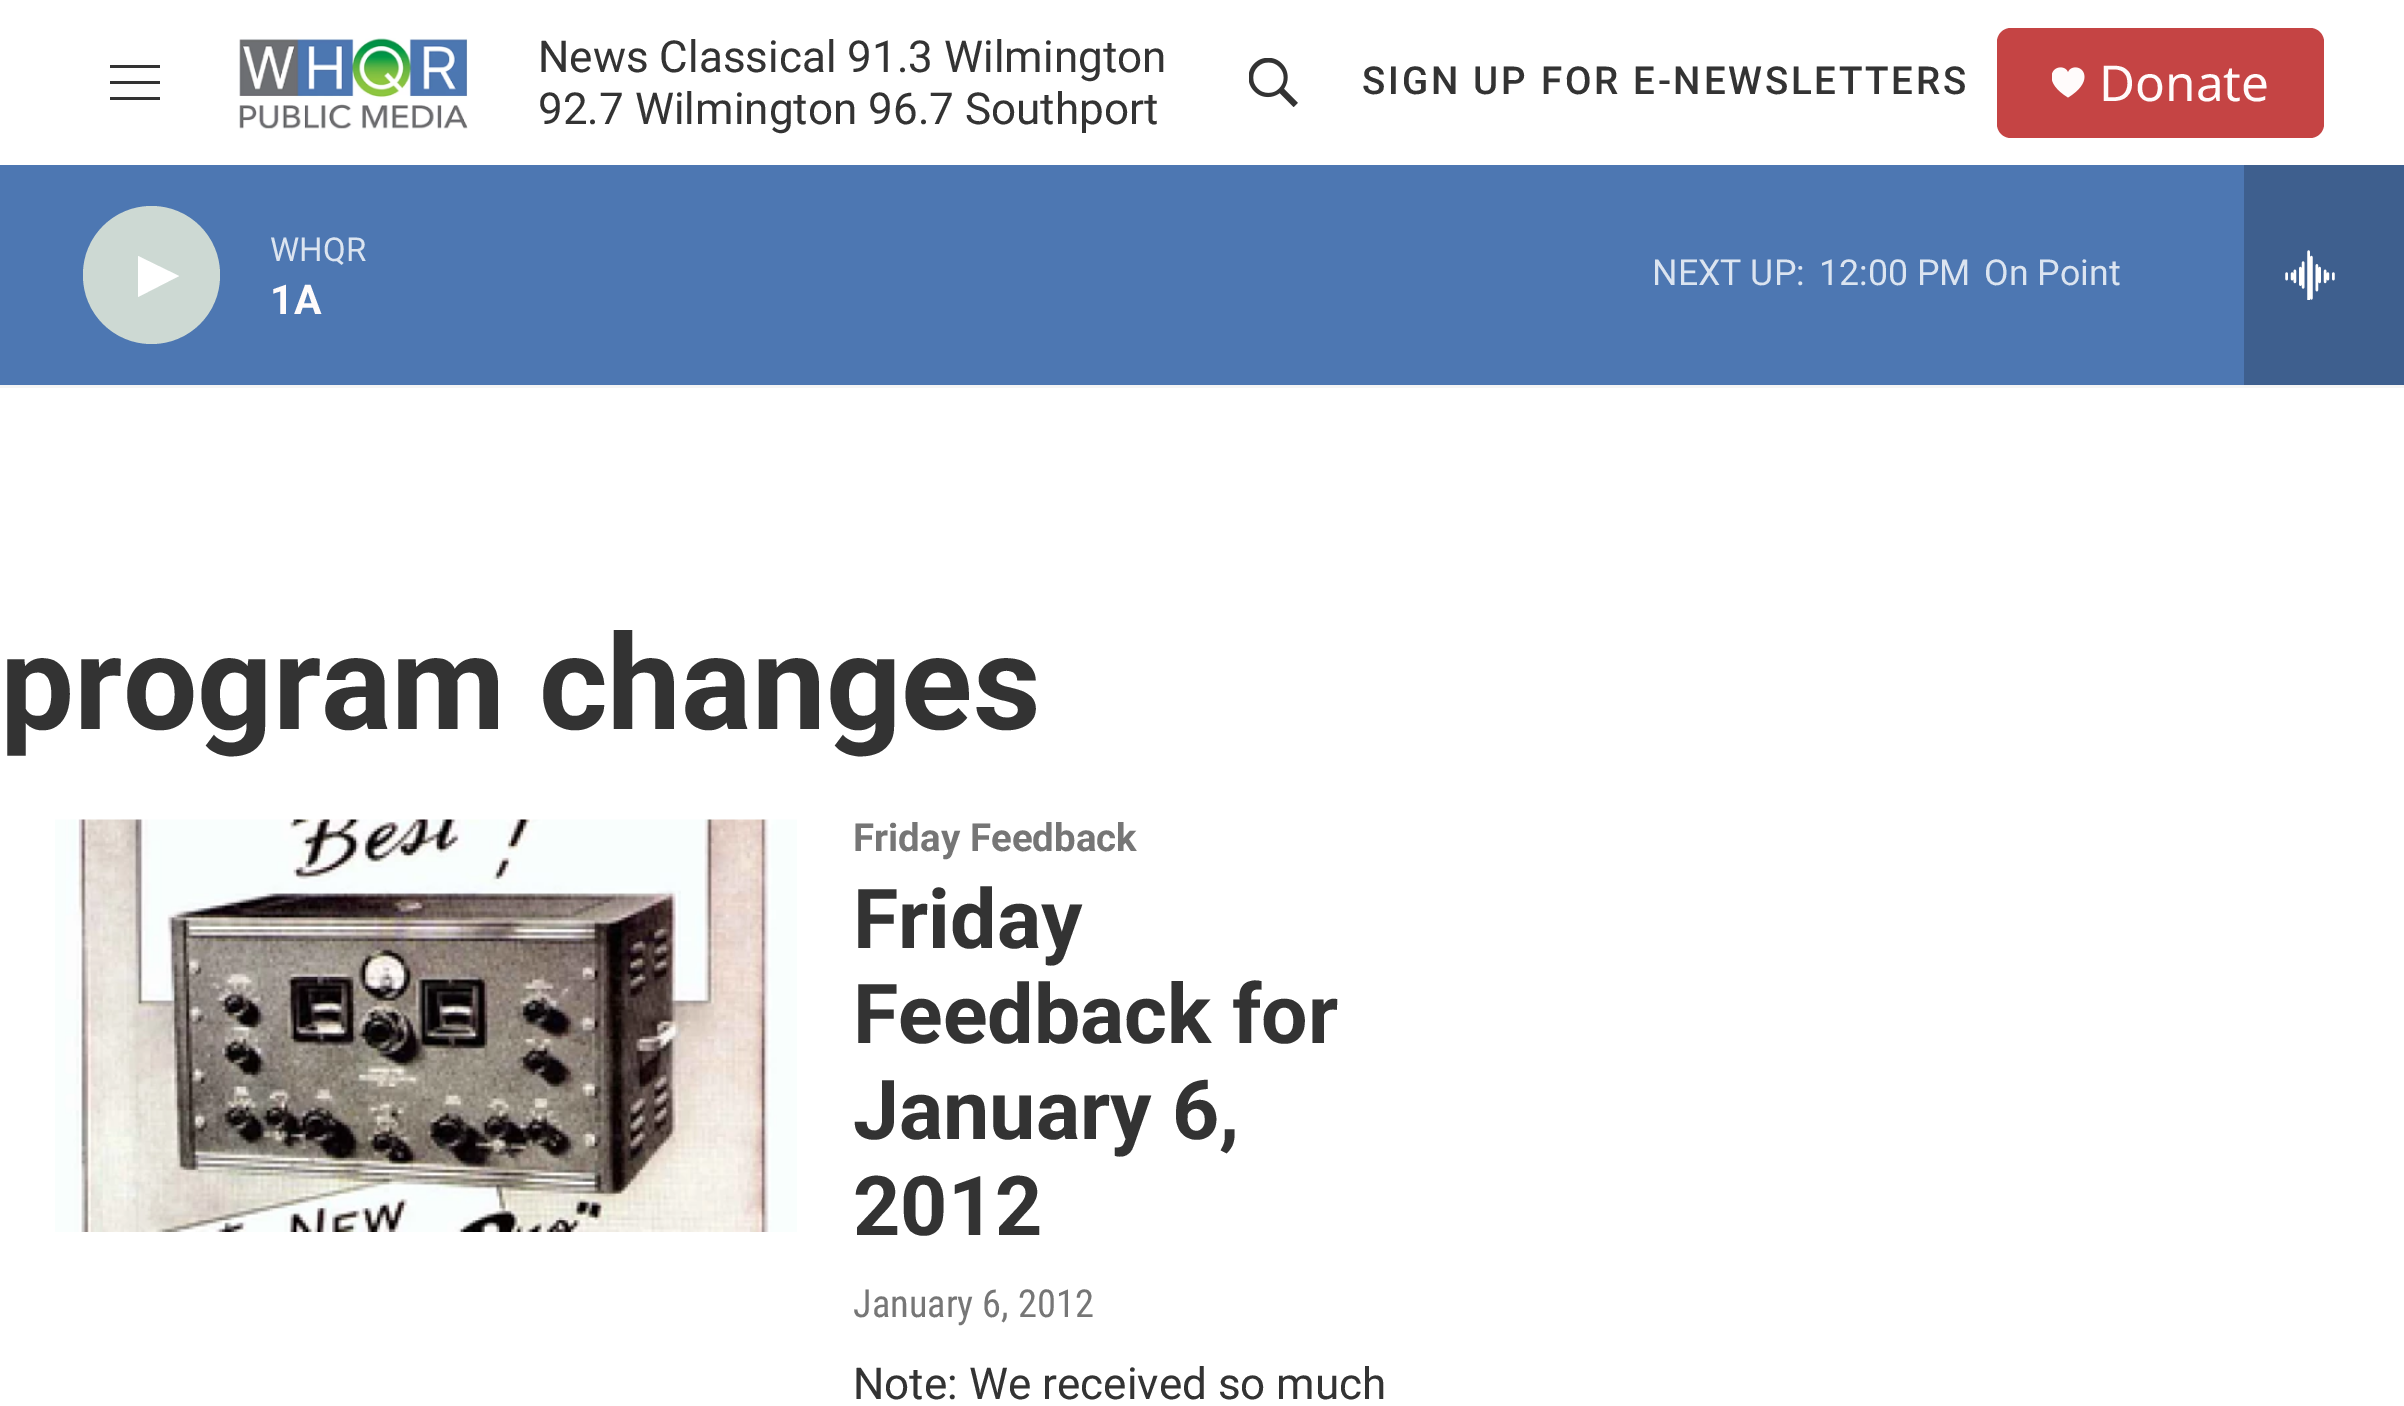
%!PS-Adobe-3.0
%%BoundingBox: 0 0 2404 1406
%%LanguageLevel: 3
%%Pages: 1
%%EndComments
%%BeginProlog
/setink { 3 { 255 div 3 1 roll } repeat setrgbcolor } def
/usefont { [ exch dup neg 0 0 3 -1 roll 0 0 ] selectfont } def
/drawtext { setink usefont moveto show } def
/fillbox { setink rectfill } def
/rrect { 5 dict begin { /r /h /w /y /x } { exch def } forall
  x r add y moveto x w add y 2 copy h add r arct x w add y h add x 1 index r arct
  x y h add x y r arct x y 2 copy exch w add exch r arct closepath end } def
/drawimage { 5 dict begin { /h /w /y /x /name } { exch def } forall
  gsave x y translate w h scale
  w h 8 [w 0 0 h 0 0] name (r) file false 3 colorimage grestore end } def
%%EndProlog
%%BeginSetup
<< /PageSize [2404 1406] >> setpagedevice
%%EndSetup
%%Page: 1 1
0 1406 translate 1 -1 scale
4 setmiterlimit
0 0 2404 1406 255 255 255 fillbox
0 385 2404 3 245 245 245 fillbox
51 51 51 setink
110 84 moveto 110 81 lineto 160 81 lineto 160 84 lineto closepath 110 68 moveto 110 65 lineto 160 65 lineto 160 68 lineto closepath 110 100 moveto 110 97 lineto 160 97 lineto 160 100 lineto closepath eofill
(assets/img1.rgb) 239 38 229 91 drawimage
(News Classical 91.3 Wilmington) 538 72 /Roboto-Regular 44 51 51 51 drawtext
(92.7 Wilmington 96.7 Southport) 538 124 /Roboto-Regular 44 51 51 51 drawtext
(assets/img2.rgb) 1249 58 49 49 drawimage
/Roboto-Medium 38.5 usefont
1362 94 moveto 2.75 0 (SIGN UP FOR E-NEWSLETTERS) ashow
197 68 68 setink
1997 28 327 110 14 rrect fill
(assets/img3.rgb) 2052 67 33 31 drawimage
(Donate) 2099 101 /NotoSans-Regular 49.5 255 251 251 drawtext
0 165 2244 220 77 119 178 fillbox
205 217 211 setink
83 206 137 138 68.5 rrect fill
255 255 255 setink
138 256 moveto 179 276 lineto 138 297 lineto closepath fill
(WHQR) 270 261 /Roboto-Regular 33 219 228 240 drawtext
(1A) 270 314 /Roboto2-Bold 41 255 251 251 drawtext
(NEXT UP:) 1652 285 /Roboto-Regular 35.75 219 228 240 drawtext
(12:00 PM) 1819 285 /Roboto-Regular 35.75 219 228 240 drawtext
(On Point) 1984 285 /Roboto-Regular 35.75 219 228 240 drawtext
2244 165 160 220 62 95 142 fillbox
(assets/img4.rgb) 2285 250 50 50 drawimage
(program changes) 0 729 /Roboto-Bold 132 51 51 51 drawtext
(assets/img5.rgb) 55 819 742 413 drawimage
(Friday Feedback) 853 851 /Roboto-Bold 38.5 118 118 118 drawtext
(Friday) 853 948 /Roboto-Bold 82.5 51 51 51 drawtext
(Feedback for) 853 1043 /Roboto-Bold 82.5 51 51 51 drawtext
(January 6,) 853 1139 /Roboto-Bold 82.5 51 51 51 drawtext
(2012) 853 1235 /Roboto-Bold 82.5 51 51 51 drawtext
(January 6, 2012) 853 1317 /RobotoCondensed-Regular 38.5 118 118 118 drawtext
(Note: We received so much) 853 1399 /Roboto-Regular 44 51 51 51 drawtext
showpage
%%EOF
